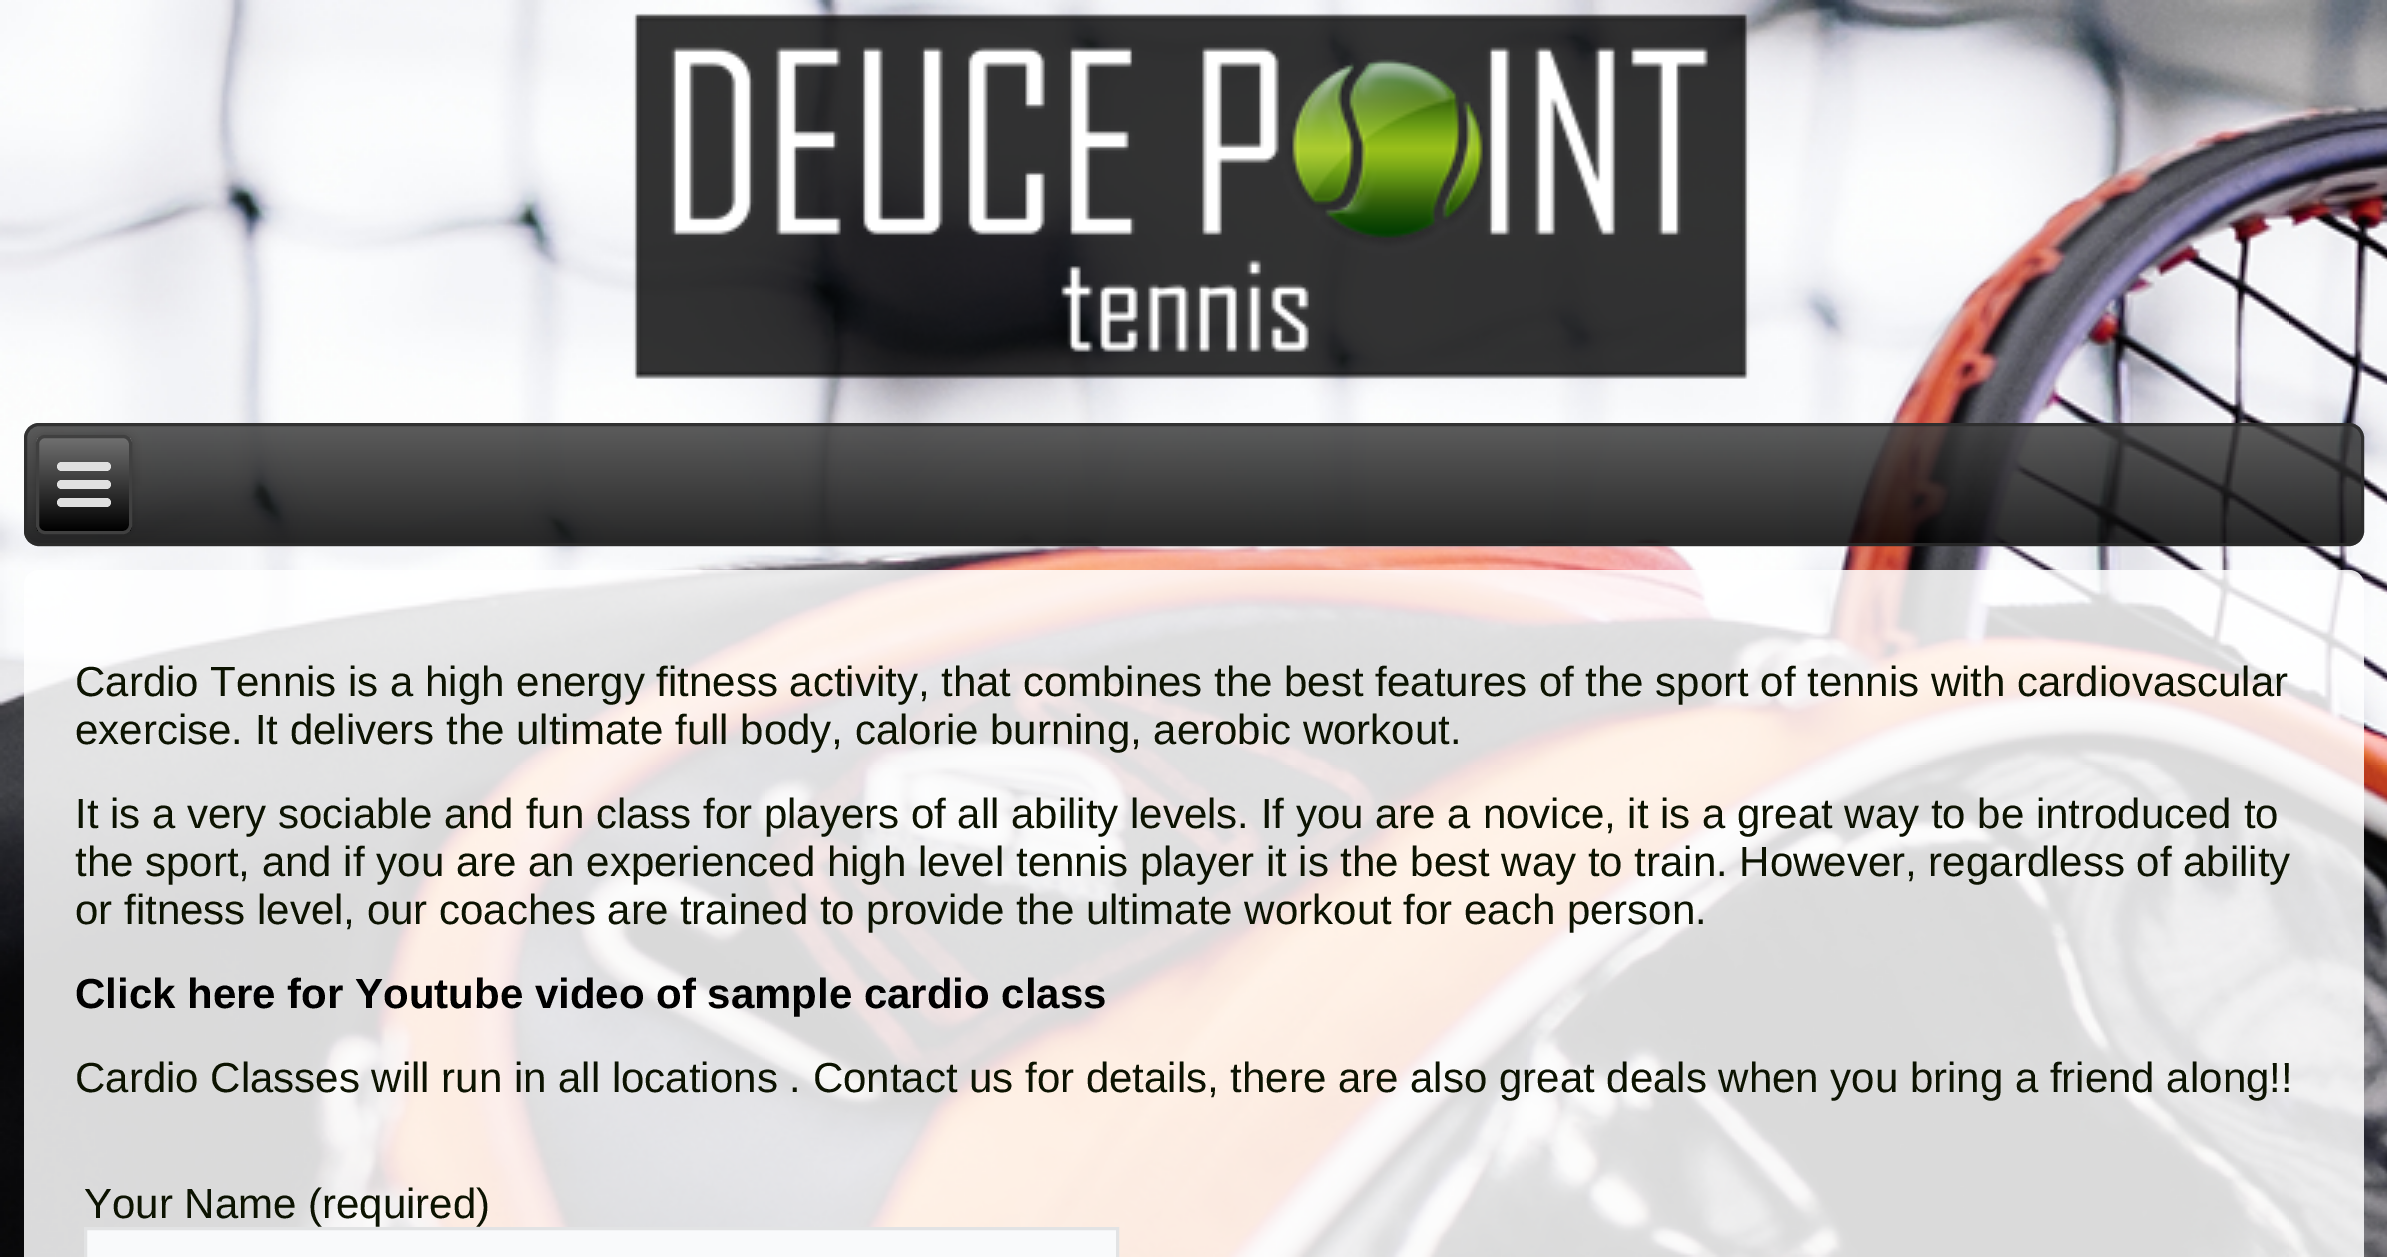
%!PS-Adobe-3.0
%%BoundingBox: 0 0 2387 1257
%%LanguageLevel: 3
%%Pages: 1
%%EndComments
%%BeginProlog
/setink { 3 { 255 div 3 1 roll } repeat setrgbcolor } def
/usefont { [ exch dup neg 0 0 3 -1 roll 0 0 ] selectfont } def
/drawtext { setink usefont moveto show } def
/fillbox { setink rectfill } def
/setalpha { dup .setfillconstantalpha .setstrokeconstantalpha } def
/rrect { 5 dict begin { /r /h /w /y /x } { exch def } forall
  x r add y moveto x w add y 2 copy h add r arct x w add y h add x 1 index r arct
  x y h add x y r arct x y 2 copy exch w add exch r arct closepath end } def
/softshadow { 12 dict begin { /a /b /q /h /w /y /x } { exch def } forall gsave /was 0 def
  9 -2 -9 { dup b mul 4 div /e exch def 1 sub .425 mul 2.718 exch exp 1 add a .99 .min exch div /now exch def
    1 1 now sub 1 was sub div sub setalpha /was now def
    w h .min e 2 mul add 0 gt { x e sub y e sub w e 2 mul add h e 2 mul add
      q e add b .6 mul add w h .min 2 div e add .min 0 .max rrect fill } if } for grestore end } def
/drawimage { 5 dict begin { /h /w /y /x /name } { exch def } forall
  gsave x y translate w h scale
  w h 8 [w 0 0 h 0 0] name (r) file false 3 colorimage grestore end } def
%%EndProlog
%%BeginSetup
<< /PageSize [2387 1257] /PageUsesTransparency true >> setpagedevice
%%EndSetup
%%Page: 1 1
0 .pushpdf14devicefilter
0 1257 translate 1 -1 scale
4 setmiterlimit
0 0 2387 1257 255 255 255 fillbox
(assets/img1.rgb) 0 0 2387 1257 drawimage
(assets/img2.rgb) 633 13 1117 366 drawimage
0.85 setalpha
43 43 43 setink
3 setlinewidth
25.5 424.5 2337 120 13.5 rrect stroke
1 setalpha
0 0 0 setink
36 435 96 99 9 4.5 0.2 softshadow
gsave
36 435 96 99 9 rrect clip newpath
gsave 36 438 moveto 132 438 lineto 132 531 lineto 36 531 lineto closepath clip newpath
<< /ShadingType 2 /ColorSpace /DeviceRGB /Coords [84 438 84 531] /Extend [true true] /Function << /FunctionType 2 /Domain [0 1] /C0 [0.439 0.439 0.439] /C1 [0 0 0] /N 1 >> >> shfill grestore
grestore
64 64 64 setink
37.5 436.5 93 96 7.5 rrect stroke
224 224 224 setink
57 462 54 9 4.5 rrect fill
57 480 54 9 4.5 rrect fill
57 498 54 9 4.5 rrect fill
0.85 setalpha
255 255 255 setink
39 570 moveto 2349 570 lineto 2357.5 570 2364 576.5 2364 585 curveto 2364 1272 lineto 24 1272 lineto 24 585 lineto 24 576.5 30.5 570 39 570 curveto closepath fill
1 setalpha
(Cardio Tennis is a high energy fitness activity, that combines the best features of the sport of tennis with cardiovascular) 75 696 /LiberationSans-Regular 42 12 19 1 drawtext
(exercise. It delivers the ultimate full body, calorie burning, aerobic workout.) 75 744 /LiberationSans-Regular 42 12 19 1 drawtext
(It is a very sociable and fun class for players of all ability levels. If you are a novice, it is a great way to be introduced to) 75 828 /LiberationSans-Regular 42 12 19 1 drawtext
(the sport, and if you are an experienced high level tennis player it is the best way to train. However, regardless of ability) 75 876 /LiberationSans-Regular 42 12 19 1 drawtext
(or fitness level, our coaches are trained to provide the ultimate workout for each person.) 75 924 /LiberationSans-Regular 42 12 19 1 drawtext
(Click here for Youtube video of sample cardio class) 75 1008 /LiberationSans-Bold 42 0 0 0 drawtext
(Cardio Classes will run in all locations . Contact us for details, there are also great deals when you bring a friend along!!) 75 1092 /LiberationSans-Regular 42 12 19 1 drawtext
(Your Name \(required\)) 84 1218 /LiberationSans-Regular 42 12 19 1 drawtext
249 250 251 setink
85.5 1228.5 moveto 1117.5 1228.5 lineto 1117.5 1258.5 lineto 85.5 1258.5 lineto closepath gsave fill grestore
226 227 228 setink
stroke
.poppdf14devicefilter showpage
%%EOF
